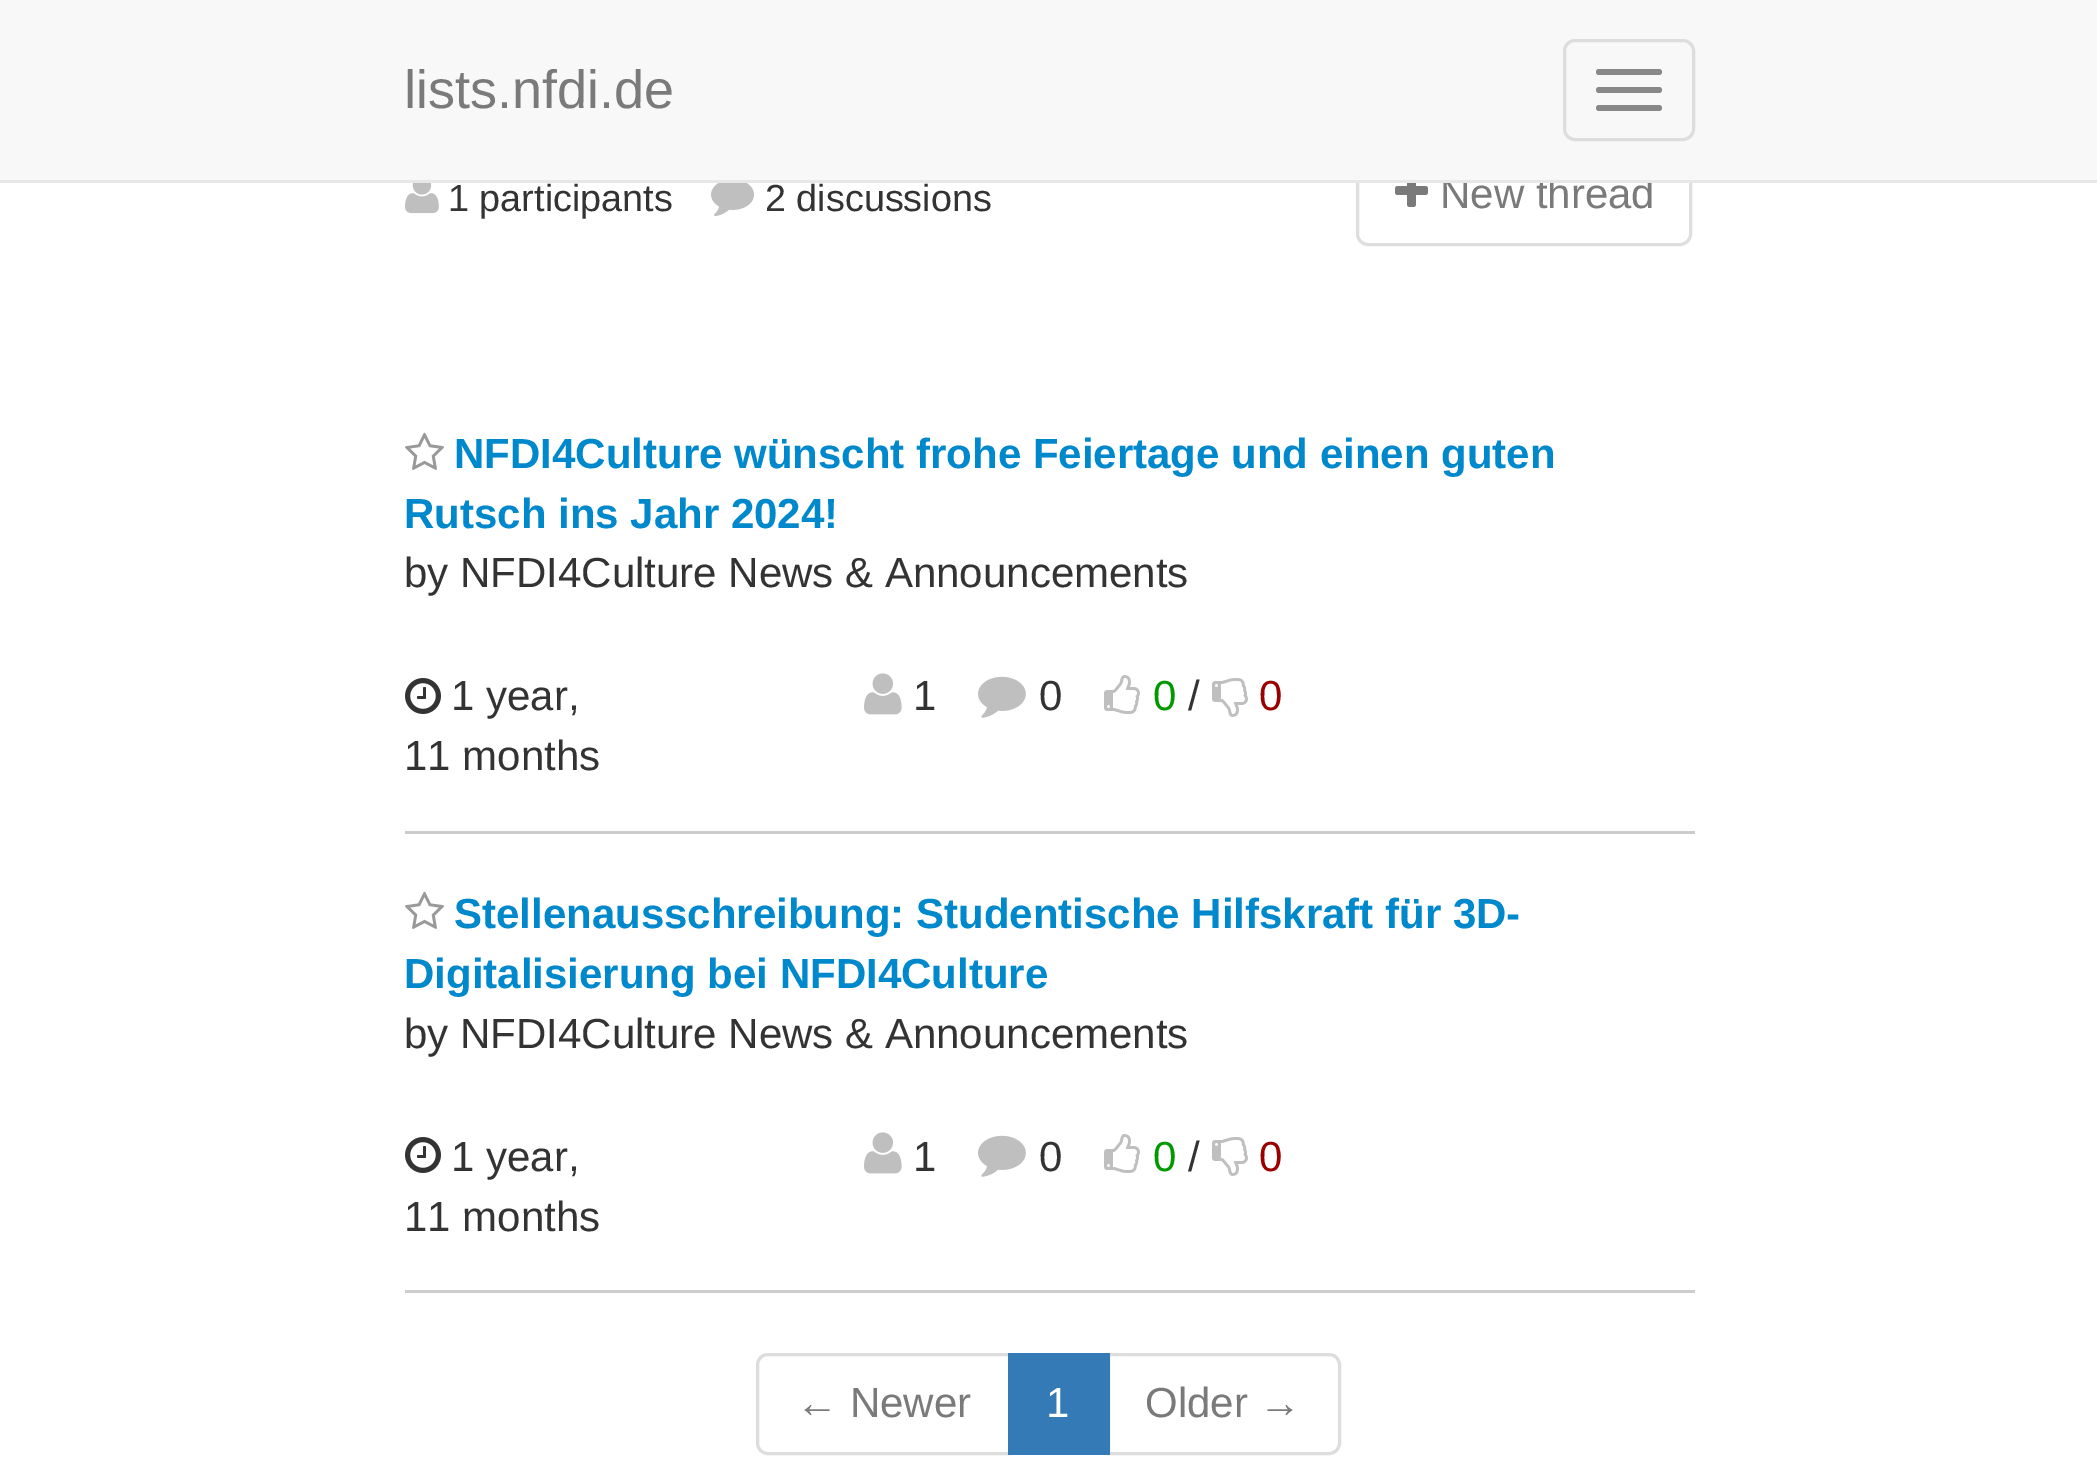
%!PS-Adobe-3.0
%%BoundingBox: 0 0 2097 1461
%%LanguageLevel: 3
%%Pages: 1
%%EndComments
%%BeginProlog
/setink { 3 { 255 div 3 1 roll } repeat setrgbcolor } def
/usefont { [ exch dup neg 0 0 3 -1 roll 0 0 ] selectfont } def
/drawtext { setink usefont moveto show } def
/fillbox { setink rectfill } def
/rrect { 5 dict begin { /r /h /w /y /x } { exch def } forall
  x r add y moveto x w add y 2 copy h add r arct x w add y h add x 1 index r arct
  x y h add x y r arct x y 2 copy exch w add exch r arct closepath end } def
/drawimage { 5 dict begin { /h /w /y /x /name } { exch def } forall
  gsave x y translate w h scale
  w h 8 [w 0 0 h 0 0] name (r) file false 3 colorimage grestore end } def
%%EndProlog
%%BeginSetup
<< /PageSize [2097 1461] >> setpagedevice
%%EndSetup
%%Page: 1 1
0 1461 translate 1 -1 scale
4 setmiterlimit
0 0 2097 1461 255 255 255 fillbox
222 222 222 setink
3 setlinewidth
1357.5 145.5 333 99 10.5 rrect stroke
(New thread) 1440 208 /LiberationSans-Regular 42 122 122 122 drawtext
0 0 2097 180 248 248 248 fillbox
0 180 2097 3 231 231 231 fillbox
(lists.nfdi.de) 404 108 /LiberationSans-Regular 54 122 122 122 drawtext
221 221 221 setink
1564.5 40.5 129 99 10.5 rrect stroke
136 136 136 setink
1596 69 66 6 3 rrect fill
1596 87 66 6 3 rrect fill
1596 105 66 6 3 rrect fill
(assets/img1.rgb) 405 183 34 31 drawimage
(1 participants) 448 211 /LiberationSans-Regular 37.75 51 51 51 drawtext
(assets/img2.rgb) 711 183 44 34 drawimage
(2 discussions) 765 211 /LiberationSans-Regular 37.75 51 51 51 drawtext
(assets/img3.rgb) 1395 183 33 24 drawimage
405 831 1290 3 204 204 204 fillbox
(assets/img4.rgb) 405 432 39 38 drawimage
(NFDI4Culture wünscht frohe Feiertage und einen guten) 454 468 /LiberationSans-Bold 42 0 136 204 drawtext
(Rutsch ins Jahr 2024!) 404 528 /LiberationSans-Bold 42 0 136 204 drawtext
(by NFDI4Culture News & Announcements) 404 587 /LiberationSans-Regular 42 51 51 51 drawtext
(assets/img5.rgb) 405 678 36 36 drawimage
(1 year,) 451 710 /LiberationSans-Regular 42 51 51 51 drawtext
(11 months) 404 770 /LiberationSans-Regular 42 51 51 51 drawtext
(assets/img6.rgb) 864 673 38 42 drawimage
(1) 913 710 /LiberationSans-Regular 42 51 51 51 drawtext
(assets/img7.rgb) 978 676 48 42 drawimage
(0) 1039 710 /LiberationSans-Regular 42 51 51 51 drawtext
(assets/img8.rgb) 1104 675 36 39 drawimage
(0) 1153 710 /LiberationSans-Regular 42 0 153 0 drawtext
(/) 1188 710 /LiberationSans-Regular 42 51 51 51 drawtext
(assets/img9.rgb) 1212 678 36 39 drawimage
(0) 1259 710 /LiberationSans-Regular 42 153 0 0 drawtext
405 1290 1290 3 204 204 204 fillbox
(assets/img4.rgb) 405 891 39 38 drawimage
(Stellenausschreibung: Studentische Hilfskraft für 3D-) 454 928 /LiberationSans-Bold 42 0 136 204 drawtext
(Digitalisierung bei NFDI4Culture) 404 988 /LiberationSans-Bold 42 0 136 204 drawtext
(by NFDI4Culture News & Announcements) 404 1048 /LiberationSans-Regular 42 51 51 51 drawtext
(assets/img5.rgb) 405 1137 36 36 drawimage
(1 year,) 451 1171 /LiberationSans-Regular 42 51 51 51 drawtext
(11 months) 404 1231 /LiberationSans-Regular 42 51 51 51 drawtext
(assets/img6.rgb) 864 1132 38 42 drawimage
(1) 913 1171 /LiberationSans-Regular 42 51 51 51 drawtext
(assets/img7.rgb) 978 1135 48 42 drawimage
(0) 1039 1171 /LiberationSans-Regular 42 51 51 51 drawtext
(assets/img8.rgb) 1104 1134 36 39 drawimage
(0) 1153 1171 /LiberationSans-Regular 42 0 153 0 drawtext
(/) 1188 1171 /LiberationSans-Regular 42 51 51 51 drawtext
(assets/img9.rgb) 1212 1137 36 39 drawimage
(0) 1259 1171 /LiberationSans-Regular 42 153 0 0 drawtext
221 221 221 setink
768 1354.5 moveto 1009.5 1354.5 lineto 1009.5 1453.5 lineto 768 1453.5 lineto 762 1453.5 757.5 1449 757.5 1443 curveto 757.5 1365 lineto 757.5 1359 762 1354.5 768 1354.5 curveto closepath stroke
(← Newer) 796 1417 /LiberationSans-Regular 42 122 122 122 drawtext
221 221 221 setink
1108.5 1354.5 moveto 1329 1354.5 lineto 1335 1354.5 1339.5 1359 1339.5 1365 curveto 1339.5 1443 lineto 1339.5 1449 1335 1453.5 1329 1453.5 curveto 1108.5 1453.5 lineto closepath stroke
1008 1353 102 102 51 122 183 fillbox
(1) 1046 1417 /LiberationSans-Regular 42 255 255 255 drawtext
(Older →) 1145 1417 /LiberationSans-Regular 42 122 122 122 drawtext
showpage
%%EOF
